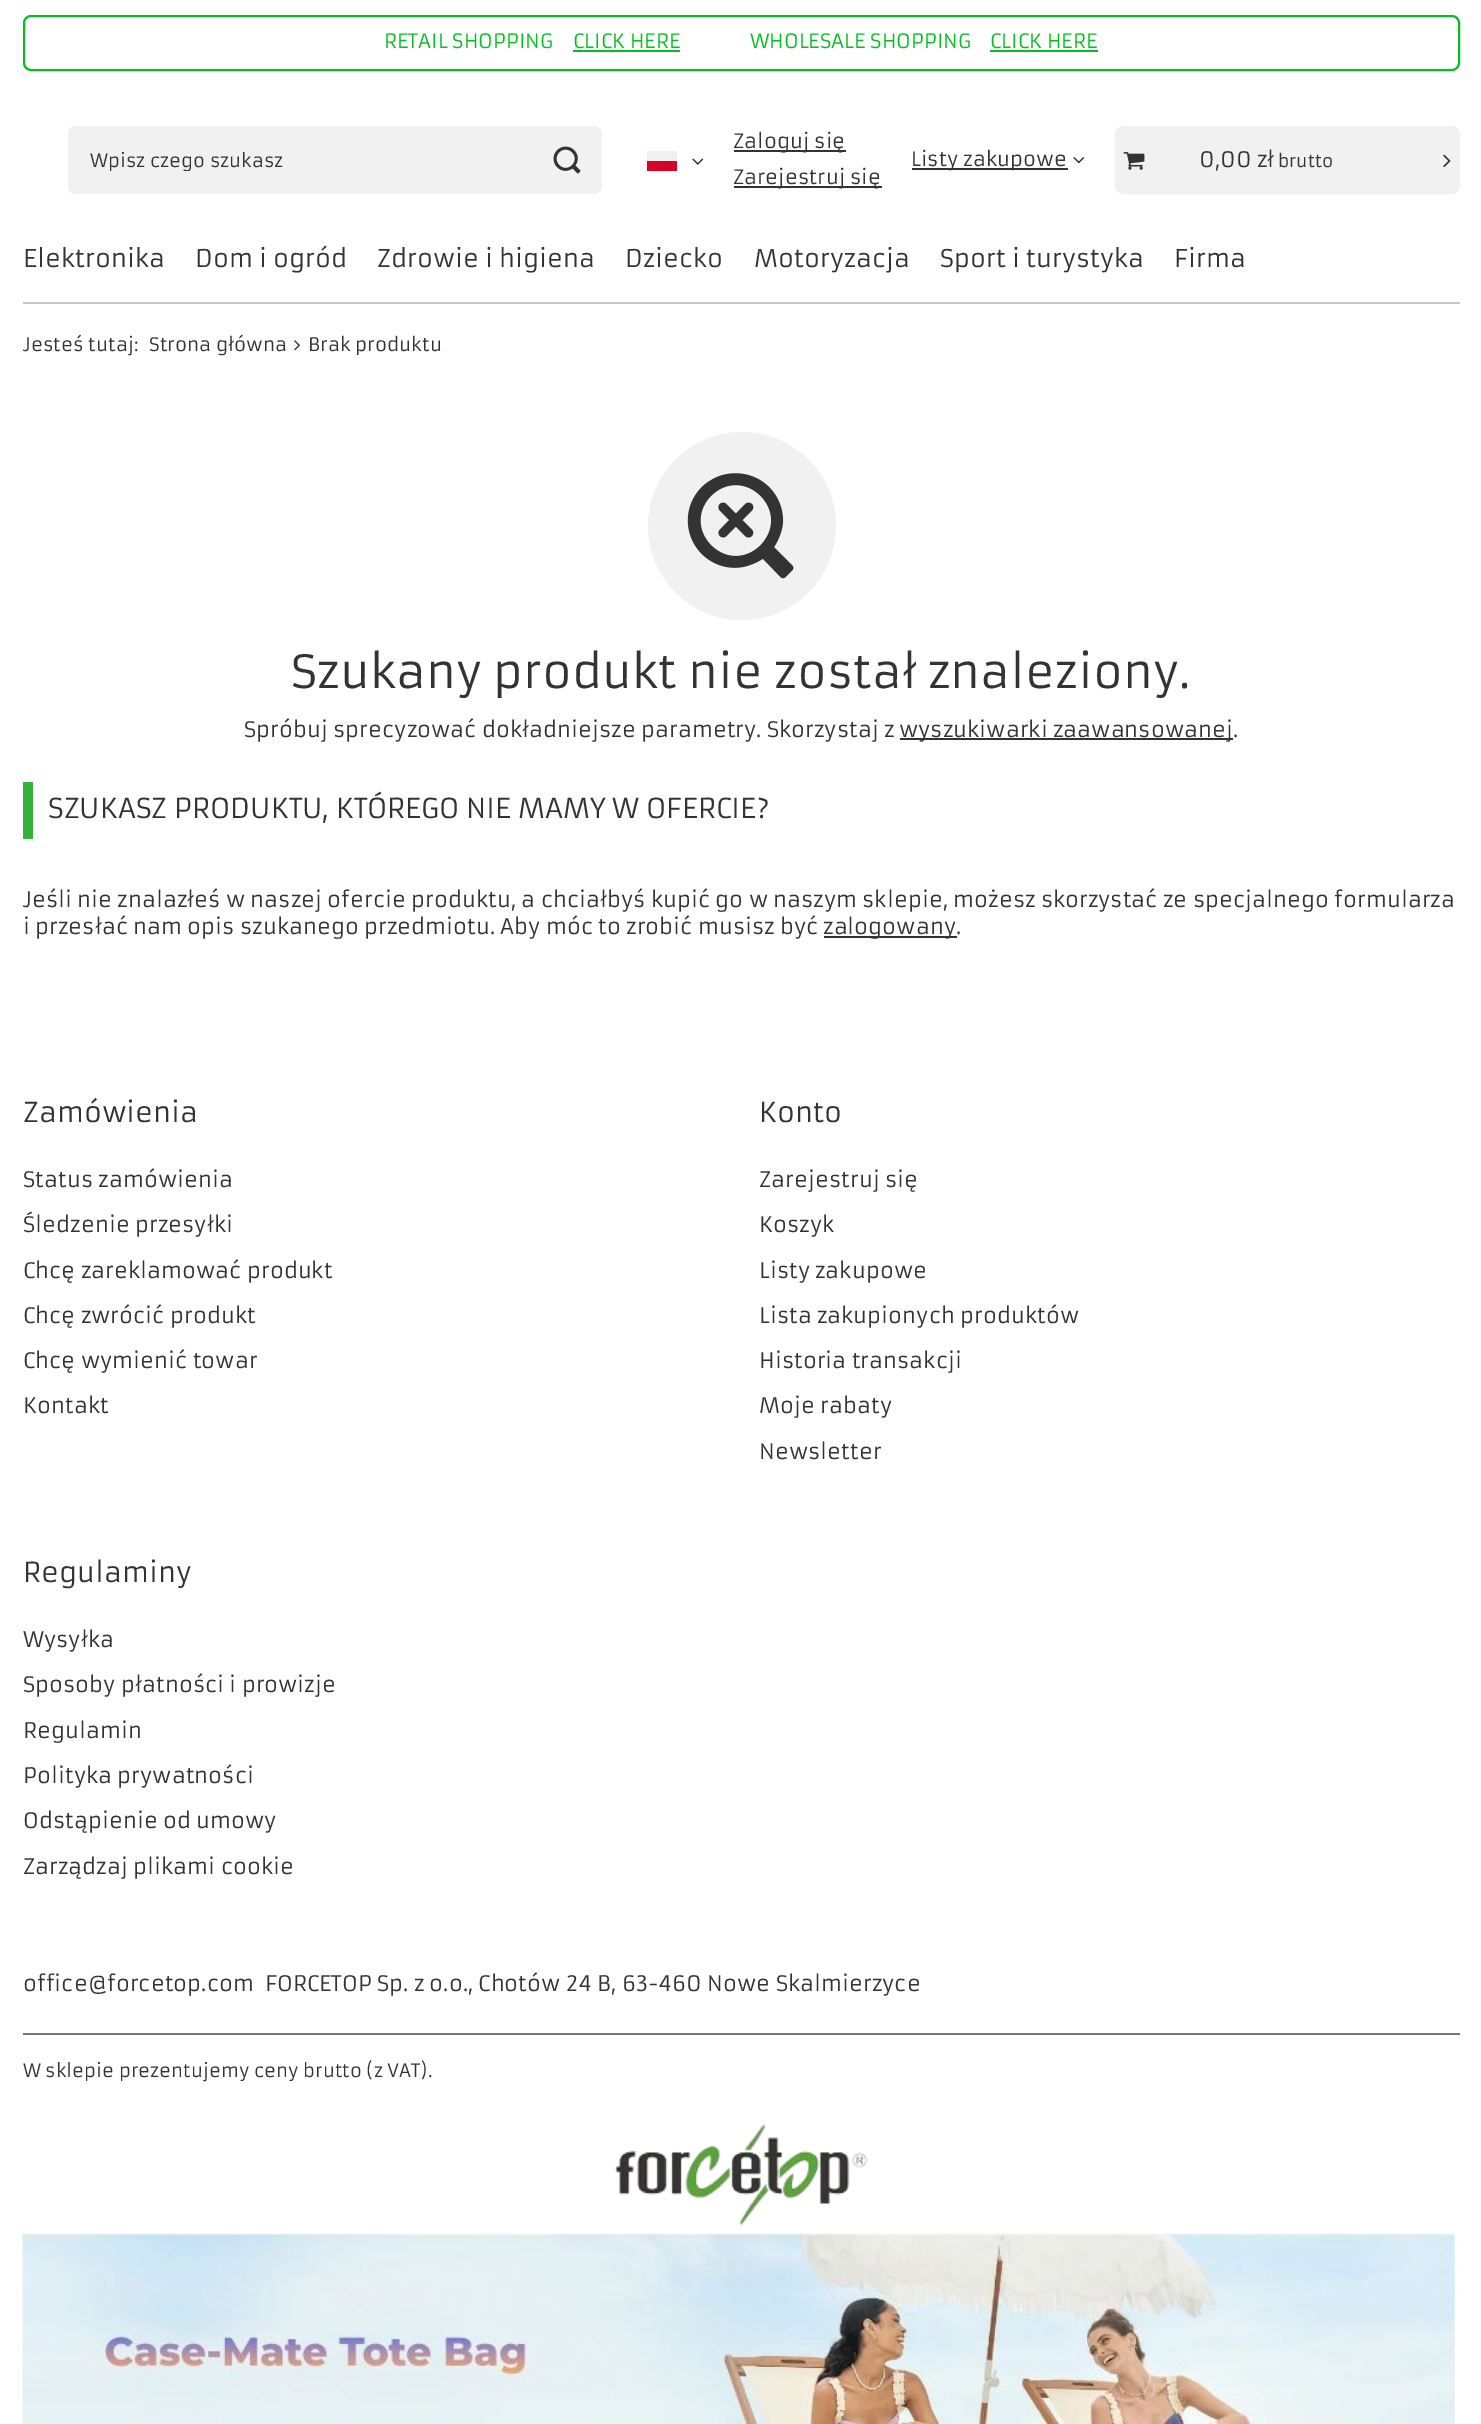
%!PS-Adobe-3.0
%%BoundingBox: 0 0 1481 2424
%%LanguageLevel: 3
%%Pages: 1
%%EndComments
%%BeginProlog
/setink { 3 { 255 div 3 1 roll } repeat setrgbcolor } def
/usefont { [ exch dup neg 0 0 3 -1 roll 0 0 ] selectfont } def
/drawtext { setink usefont moveto show } def
/fillbox { setink rectfill } def
/disc { newpath 0 360 arc closepath } def
/rrect { 5 dict begin { /r /h /w /y /x } { exch def } forall
  x r add y moveto x w add y 2 copy h add r arct x w add y h add x 1 index r arct
  x y h add x y r arct x y 2 copy exch w add exch r arct closepath end } def
/drawimage { 5 dict begin { /h /w /y /x /name } { exch def } forall
  gsave x y translate w h scale
  w h 8 [w 0 0 h 0 0] name (r) file false 3 colorimage grestore end } def
%%EndProlog
%%BeginSetup
<< /PageSize [1481 2424] >> setpagedevice
%%EndSetup
%%Page: 1 1
0 2424 translate 1 -1 scale
4 setmiterlimit
0 0 1481 2424 255 255 255 fillbox
5 190 33 setink
2 setlinewidth
24 16 1435 54 7 rrect stroke
(RETAIL SHOPPING) 384 48 /Armata-Regular 19.5 5 190 33 drawtext
(CLICK HERE) 573 48 /Armata-Regular 19.5 5 190 33 drawtext
573 50 107 2 5 190 33 fillbox
(WHOLESALE SHOPPING) 750 48 /Armata-Regular 19.5 5 190 33 drawtext
(CLICK HERE) 990 48 /Armata-Regular 19.5 5 190 33 drawtext
990 50 108 2 5 190 33 fillbox
241 241 241 setink
68 126 534 68 8 rrect fill
gsave
90 149 399 22 rectclip
(Wpisz czego szukasz) 90 167 /Armata-Regular 18 51 51 51 drawtext
grestore
(assets/img1.rgb) 553 146 28 28 drawimage
647 151 30 10 240 240 240 fillbox
647 161 30 10 216 0 39 fillbox
(assets/img2.rgb) 692 158 12 7 drawimage
734 150 112 2 51 51 51 fillbox
(Zaloguj się) 733 148 /Armata-Regular 19.5 51 51 51 drawtext
734 186 148 2 51 51 51 fillbox
(Zarejestruj się) 733 184 /Armata-Regular 19.5 51 51 51 drawtext
912 168 156 2 51 51 51 fillbox
(Listy zakupowe) 911 166 /Armata-Regular 19.5 51 51 51 drawtext
(assets/img3.rgb) 1073 157 12 7 drawimage
241 241 241 setink
1116 127 343 66 7 rrect gsave fill grestore
stroke
(assets/img4.rgb) 1123 152 22 18 drawimage
(0,00 zł) 1199 167 /Armata-Regular 21 51 51 51 drawtext
(brutto) 1278 167 /Armata-Regular 17 51 51 51 drawtext
(assets/img5.rgb) 1443 154 8 14 drawimage
23 302 1437 2 196 199 200 fillbox
(Elektronika) 23 267 /Armata-Regular 24 51 51 51 drawtext
(Dom i ogród) 195 267 /Armata-Regular 24 51 51 51 drawtext
(Zdrowie i higiena) 377 267 /Armata-Regular 24 51 51 51 drawtext
(Dziecko) 625 267 /Armata-Regular 24 51 51 51 drawtext
(Motoryzacja) 754 267 /Armata-Regular 24 51 51 51 drawtext
(Sport i turystyka) 940 267 /Armata-Regular 24 51 51 51 drawtext
(Firma) 1174 267 /Armata-Regular 24 51 51 51 drawtext
(Jesteś tutaj:) 23 351 /Armata-Regular 18.25 51 51 51 drawtext
(Strona główna) 149 351 /Armata-Regular 18.25 51 51 51 drawtext
(assets/img6.rgb) 294 340 6 11 drawimage
(Brak produktu) 308 351 /Armata-Regular 18.25 51 51 51 drawtext
241 241 241 setink
742 526 94 disc fill
(assets/img7.rgb) 687 473 107 106 drawimage
(Szukany produkt nie został znaleziony.) 291 688 /Armata-Regular 45 51 51 51 drawtext
(Spróbuj sprecyzować dokładniejsze parametry. Skorzystaj z) 244 737 /Armata-Regular 21 51 51 51 drawtext
900 738 333 2 51 51 51 fillbox
(wyszukiwarki zaawansowanej.) 899 737 /Armata-Regular 21 51 51 51 drawtext
23 782 10 57 51 179 59 fillbox
(SZUKASZ PRODUKTU, KTÓREGO NIE MAMY W OFERCIE?) 48 818 /Armata-Regular 27 51 51 51 drawtext
(Jeśli nie znalazłeś w naszej ofercie produktu, a chciałbyś kupić go w naszym sklepie, możesz skorzystać ze specjalnego formularza) 23 907 /Armata-Regular 21 51 51 51 drawtext
(i przesłać nam opis szukanego przedmiotu. Aby móc to zrobić musisz być) 23 934 /Armata-Regular 21 51 51 51 drawtext
824 936 133 2 51 51 51 fillbox
(zalogowany.) 823 934 /Armata-Regular 21 51 51 51 drawtext
(Zamówienia) 23 1122 /Armata-Regular 27 51 51 51 drawtext
(Status zamówienia) 23 1187 /Armata-Regular 21 51 51 51 drawtext
(Śledzenie przesyłki) 23 1232 /Armata-Regular 21 51 51 51 drawtext
(Chcę zareklamować produkt) 23 1278 /Armata-Regular 21 51 51 51 drawtext
(Chcę zwrócić produkt) 23 1323 /Armata-Regular 21 51 51 51 drawtext
(Chcę wymienić towar) 23 1368 /Armata-Regular 21 51 51 51 drawtext
(Kontakt) 23 1413 /Armata-Regular 21 51 51 51 drawtext
(Konto) 759 1122 /Armata-Regular 27 51 51 51 drawtext
(Zarejestruj się) 759 1187 /Armata-Regular 21 51 51 51 drawtext
(Koszyk) 759 1232 /Armata-Regular 21 51 51 51 drawtext
(Listy zakupowe) 759 1278 /Armata-Regular 21 51 51 51 drawtext
(Lista zakupionych produktów) 759 1323 /Armata-Regular 21 51 51 51 drawtext
(Historia transakcji) 759 1368 /Armata-Regular 21 51 51 51 drawtext
(Moje rabaty) 759 1413 /Armata-Regular 21 51 51 51 drawtext
(Newsletter) 759 1459 /Armata-Regular 21 51 51 51 drawtext
(Regulaminy) 23 1582 /Armata-Regular 27 51 51 51 drawtext
(Wysyłka) 23 1647 /Armata-Regular 21 51 51 51 drawtext
(Sposoby płatności i prowizje) 23 1692 /Armata-Regular 21 51 51 51 drawtext
(Regulamin) 23 1738 /Armata-Regular 21 51 51 51 drawtext
(Polityka prywatności) 23 1783 /Armata-Regular 21 51 51 51 drawtext
(Odstąpienie od umowy) 23 1828 /Armata-Regular 21 51 51 51 drawtext
(Zarządzaj plikami cookie) 23 1874 /Armata-Regular 21 51 51 51 drawtext
23 2033 1437 2 107 119 133 fillbox
(office@forcetop.com) 23 1991 /Armata-Regular 21 51 51 51 drawtext
(FORCETOP Sp. z o.o., Chotów 24 B, 63-460 Nowe Skalmierzyce) 265 1991 /Armata-Regular 21 51 51 51 drawtext
(W sklepie prezentujemy ceny brutto \(z VAT\).) 23 2077 /Armata-Regular 18 51 51 51 drawtext
(assets/img8.rgb) 615 2124 253 102 drawimage
(assets/img9.rgb) 22 2233 1435 191 drawimage
showpage
%%EOF
